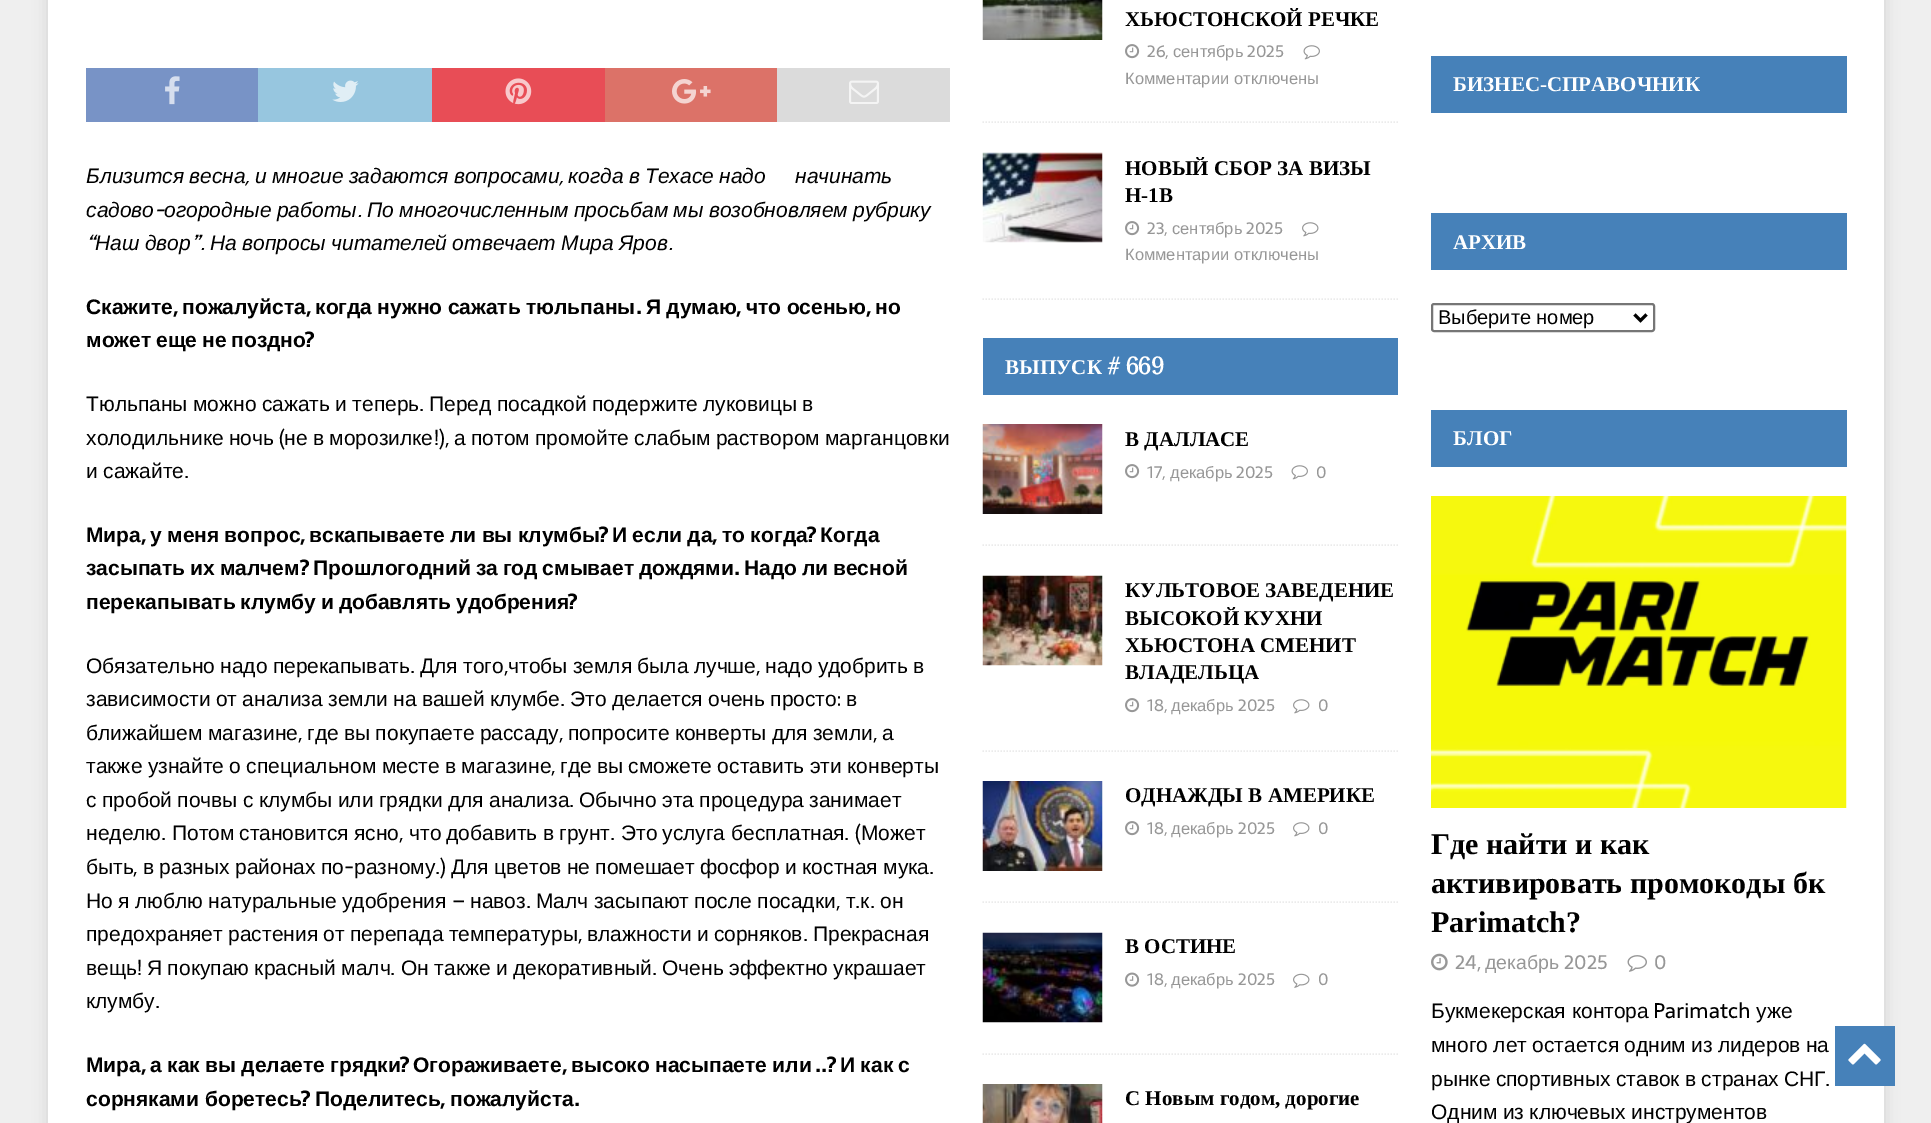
%!PS-Adobe-3.0
%%BoundingBox: 0 0 1931 1123
%%LanguageLevel: 3
%%Pages: 1
%%EndComments
%%BeginProlog
/setink { 3 { 255 div 3 1 roll } repeat setrgbcolor } def
/usefont { [ exch dup neg 0 0 3 -1 roll 0 0 ] selectfont } def
/drawtext { setink usefont moveto show } def
/fillbox { setink rectfill } def
/setalpha { dup .setfillconstantalpha .setstrokeconstantalpha } def
/rrect { 5 dict begin { /r /h /w /y /x } { exch def } forall
  x r add y moveto x w add y 2 copy h add r arct x w add y h add x 1 index r arct
  x y h add x y r arct x y 2 copy exch w add exch r arct closepath end } def
/softshadow { 12 dict begin { /a /b /q /h /w /y /x } { exch def } forall gsave /was 0 def
  9 -2 -9 { dup b mul 4 div /e exch def 1 sub .425 mul 2.718 exch exp 1 add a .99 .min exch div /now exch def
    1 1 now sub 1 was sub div sub setalpha /was now def
    w h .min e 2 mul add 0 gt { x e sub y e sub w e 2 mul add h e 2 mul add
      q e add b .6 mul add w h .min 2 div e add .min 0 .max rrect fill } if } for grestore end } def
/drawimage { 5 dict begin { /h /w /y /x /name } { exch def } forall
  gsave x y translate w h scale
  w h 8 [w 0 0 h 0 0] name (r) file false 3 colorimage grestore end } def
%%EndProlog
%%BeginSetup
<< /PageSize [1931 1123] /PageUsesTransparency true >> setpagedevice
%%EndSetup
%%Page: 1 1
0 .pushpdf14devicefilter
0 1123 translate 1 -1 scale
4 setmiterlimit
0 0 1931 1123 239 239 239 fillbox
50 50 50 setink
48 -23 1836 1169 0 7.5 0.17 softshadow
48 0 1836 1123 255 255 255 fillbox
86 68 172 54 120 147 198 fillbox
(assets/img1.rgb) 165 76 15 29 drawimage
258 68 174 54 151 198 223 fillbox
(assets/img2.rgb) 332 80 27 22 drawimage
432 68 173 54 232 77 86 fillbox
(assets/img3.rgb) 505 78 27 27 drawimage
605 68 172 54 220 114 104 fillbox
(assets/img4.rgb) 672 79 39 25 drawimage
777 68 173 54 219 219 219 fillbox
(assets/img5.rgb) 849 80 30 24 drawimage
/LiberationSans-Italic 21 usefont
0 0 0 setink
86 183 moveto -0.5 0 32 (Близится весна) widthshow
(,) 245 183 /Sarala-Italic 21 0 0 0 drawtext
/LiberationSans-Italic 21 usefont
255 183 moveto -0.5 0 32 (и многие задаются вопросами) widthshow
(,) 559 183 /Sarala-Italic 21 0 0 0 drawtext
/LiberationSans-Italic 21 usefont
568 183 moveto -0.5 0 32 (когда в Техасе надо) widthshow
(начинать) 795 183 /LiberationSans-Italic 21 0 0 0 drawtext
(садово) 86 217 /LiberationSans-Italic 21 0 0 0 drawtext
(-) 154 217 /Sarala-Italic 21 0 0 0 drawtext
/LiberationSans-Italic 21 usefont
164 217 moveto -0.5 0 32 (огородные работы) widthshow
367 217 moveto -0.5 0 32 (По многочисленным просьбам мы возобновляем рубрику) widthshow
(.) 357 217 /Sarala-Italic 21 0 0 0 drawtext
(“) 86 250 /Sarala-Italic 21 0 0 0 drawtext
/LiberationSans-Italic 21 usefont
95 250 moveto -0.5 0 32 (Наш двор) widthshow
(”.) 191 250 /Sarala-Italic 21 0 0 0 drawtext
/LiberationSans-Italic 21 usefont
210 250 moveto -0.5 0 32 (На вопросы читателей отвечает Мира Яров) widthshow
(.) 668 250 /Sarala-Italic 21 0 0 0 drawtext
(Скажите) 86 314 /LiberationSans-Bold 21 0 0 0 drawtext
(,) 173 314 /Sarala-Bold 21 0 0 0 drawtext
(пожалуйста) 182 314 /LiberationSans-Bold 21 0 0 0 drawtext
(,) 306 314 /Sarala-Bold 21 0 0 0 drawtext
/LiberationSans-Bold 21 usefont
315 314 moveto -0.5 0 32 (когда нужно сажать тюльпаны) widthshow
(.) 636 314 /Sarala-Bold 21 0 0 0 drawtext
/LiberationSans-Bold 21 usefont
646 314 moveto -0.5 0 32 (Я думаю) widthshow
(,) 736 314 /Sarala-Bold 21 0 0 0 drawtext
/LiberationSans-Bold 21 usefont
746 314 moveto -0.5 0 32 (что осенью) widthshow
(,) 866 314 /Sarala-Bold 21 0 0 0 drawtext
(но) 875 314 /LiberationSans-Bold 21 0 0 0 drawtext
86 347 moveto -1 0 32 (может еще не поздно) widthshow
(?) 305 347 /Sarala-Bold 21 0 0 0 drawtext
/LiberationSans-Regular 21 usefont
86 411 moveto -0.5 0 32 (Тюльпаны можно сажать и теперь) widthshow
(.) 419 411 /Sarala-Regular 21 0 0 0 drawtext
/LiberationSans-Regular 21 usefont
429 411 moveto -0.5 0 32 (Перед посадкой подержите луковицы в) widthshow
86 445 moveto -0.5 0 32 (холодильнике ночь) widthshow
(\() 279 445 /Sarala-Regular 21 0 0 0 drawtext
/LiberationSans-Regular 21 usefont
284 445 moveto -0.5 0 32 (не в морозилке) widthshow
(!\),) 434 445 /Sarala-Regular 21 0 0 0 drawtext
/LiberationSans-Regular 21 usefont
454 445 moveto -0.5 0 32 (а потом промойте слабым раствором марганцовки) widthshow
86 478 moveto -0.5 0 32 (и сажайте) widthshow
(.) 184 478 /Sarala-Regular 21 0 0 0 drawtext
(Мира) 86 542 /LiberationSans-Bold 21 0 0 0 drawtext
(,) 141 542 /Sarala-Bold 21 0 0 0 drawtext
/LiberationSans-Bold 21 usefont
150 542 moveto -0.5 0 32 (у меня вопрос) widthshow
(,) 300 542 /Sarala-Bold 21 0 0 0 drawtext
/LiberationSans-Bold 21 usefont
309 542 moveto -0.5 0 32 (вскапываете ли вы клумбы) widthshow
(?) 599 542 /Sarala-Bold 21 0 0 0 drawtext
/LiberationSans-Bold 21 usefont
612 542 moveto -0.5 0 32 (И если да) widthshow
(,) 712 542 /Sarala-Bold 21 0 0 0 drawtext
/LiberationSans-Bold 21 usefont
722 542 moveto -0.5 0 32 (то когда) widthshow
(?) 807 542 /Sarala-Bold 21 0 0 0 drawtext
(Когда) 820 542 /LiberationSans-Bold 21 0 0 0 drawtext
86 575 moveto -1 0 32 (засыпать их малчем) widthshow
(?) 300 575 /Sarala-Bold 21 0 0 0 drawtext
/LiberationSans-Bold 21 usefont
313 575 moveto -1 0 32 (Прошлогодний за год смывает дождями) widthshow
(.) 734 575 /Sarala-Bold 21 0 0 0 drawtext
/LiberationSans-Bold 21 usefont
744 575 moveto -1 0 32 (Надо ли весной) widthshow
86 609 moveto -1 0 32 (перекапывать клумбу и добавлять удобрения) widthshow
(?) 568 609 /Sarala-Bold 21 0 0 0 drawtext
/LiberationSans-Regular 21 usefont
86 673 moveto -0.5 0 32 (Обязательно надо перекапывать) widthshow
(.) 410 673 /Sarala-Regular 21 0 0 0 drawtext
/LiberationSans-Regular 21 usefont
420 673 moveto -0.5 0 32 (Для того) widthshow
(,) 504 673 /Sarala-Regular 21 0 0 0 drawtext
/LiberationSans-Regular 21 usefont
508 673 moveto -0.5 0 32 (чтобы земля была лучше) widthshow
(,) 756 673 /Sarala-Regular 21 0 0 0 drawtext
/LiberationSans-Regular 21 usefont
765 673 moveto -0.5 0 32 (надо удобрить в) widthshow
86 706 moveto -0.5 0 32 (зависимости от анализа земли на вашей клумбе) widthshow
(.) 560 706 /Sarala-Regular 21 0 0 0 drawtext
/LiberationSans-Regular 21 usefont
570 706 moveto -0.5 0 32 (Это делается очень просто) widthshow
(:) 837 706 /Sarala-Regular 21 0 0 0 drawtext
(в) 846 706 /LiberationSans-Regular 21 0 0 0 drawtext
86 740 moveto -0.5 0 32 (ближайшем магазине) widthshow
(,) 298 740 /Sarala-Regular 21 0 0 0 drawtext
/LiberationSans-Regular 21 usefont
307 740 moveto -0.5 0 32 (где вы покупаете рассаду) widthshow
(,) 559 740 /Sarala-Regular 21 0 0 0 drawtext
/LiberationSans-Regular 21 usefont
568 740 moveto -0.5 0 32 (попросите конверты для земли) widthshow
(,) 873 740 /Sarala-Regular 21 0 0 0 drawtext
(а) 882 740 /LiberationSans-Regular 21 0 0 0 drawtext
86 773 moveto -0.5 0 32 (также узнайте о специальном месте в магазине) widthshow
(,) 551 773 /Sarala-Regular 21 0 0 0 drawtext
/LiberationSans-Regular 21 usefont
560 773 moveto -0.5 0 32 (где вы сможете оставить эти конверты) widthshow
86 807 moveto -0.5 0 32 (с пробой почвы с клумбы или грядки для анализа) widthshow
(.) 569 807 /Sarala-Regular 21 0 0 0 drawtext
/LiberationSans-Regular 21 usefont
579 807 moveto -0.5 0 32 (Обычно эта процедура занимает) widthshow
(неделю) 86 840 /LiberationSans-Regular 21 0 0 0 drawtext
(.) 161 840 /Sarala-Regular 21 0 0 0 drawtext
(Потом) 172 840 /LiberationSans-Regular 21 0 0 0 drawtext
(становится) 239 840 /LiberationSans-Regular 21 0 0 0 drawtext
(ясно) 354 840 /LiberationSans-Regular 21 0 0 0 drawtext
(,) 399 840 /Sarala-Regular 21 0 0 0 drawtext
(что) 409 840 /LiberationSans-Regular 21 0 0 0 drawtext
(добавить) 446 840 /LiberationSans-Regular 21 0 0 0 drawtext
(в) 543 840 /LiberationSans-Regular 21 0 0 0 drawtext
(грунт) 559 840 /LiberationSans-Regular 21 0 0 0 drawtext
(.) 610 840 /Sarala-Regular 21 0 0 0 drawtext
(Это) 621 840 /LiberationSans-Regular 21 0 0 0 drawtext
(услуга) 662 840 /LiberationSans-Regular 21 0 0 0 drawtext
(бесплатная) 731 840 /LiberationSans-Regular 21 0 0 0 drawtext
(. \() 844 840 /Sarala-Regular 21 0 0 0 drawtext
(Может) 861 840 /LiberationSans-Regular 21 0 0 0 drawtext
(быть) 86 874 /LiberationSans-Regular 21 0 0 0 drawtext
143 874 moveto -0.5 0 32 (в разных районах по) widthshow
(-) 344 874 /Sarala-Regular 21 0 0 0 drawtext
(разному) 354 874 /LiberationSans-Regular 21 0 0 0 drawtext
(.\)) 435 874 /Sarala-Regular 21 0 0 0 drawtext
/LiberationSans-Regular 21 usefont
451 874 moveto -0.5 0 32 (Для цветов не помешает фосфор и костная мука) widthshow
(,) 133 874 /Sarala-Regular 21 0 0 0 drawtext
(.) 929 874 /Sarala-Regular 21 0 0 0 drawtext
/LiberationSans-Regular 21 usefont
86 908 moveto -0.5 0 32 (Но я люблю натуральные удобрения) widthshow
(–) 452 908 /Sarala-Regular 21 0 0 0 drawtext
(навоз) 470 908 /LiberationSans-Regular 21 0 0 0 drawtext
536 908 moveto -0.5 0 32 (Малч засыпают после посадки) widthshow
(т) 846 908 /LiberationSans-Regular 21 0 0 0 drawtext
(к) 860 908 /LiberationSans-Regular 21 0 0 0 drawtext
(он) 880 908 /LiberationSans-Regular 21 0 0 0 drawtext
(.) 526 908 /Sarala-Regular 21 0 0 0 drawtext
(,) 836 908 /Sarala-Regular 21 0 0 0 drawtext
(.) 855 908 /Sarala-Regular 21 0 0 0 drawtext
(.) 870 908 /Sarala-Regular 21 0 0 0 drawtext
/LiberationSans-Regular 21 usefont
86 941 moveto -0.5 0 32 (предохраняет растения от перепада температуры) widthshow
(,) 578 941 /Sarala-Regular 21 0 0 0 drawtext
/LiberationSans-Regular 21 usefont
587 941 moveto -0.5 0 32 (влажности и сорняков) widthshow
(.) 803 941 /Sarala-Regular 21 0 0 0 drawtext
(Прекрасная) 813 941 /LiberationSans-Regular 21 0 0 0 drawtext
(вещь) 86 975 /LiberationSans-Regular 21 0 0 0 drawtext
(!) 137 975 /Sarala-Regular 21 0 0 0 drawtext
/LiberationSans-Regular 21 usefont
147 975 moveto -0.5 0 32 (Я покупаю красный малч) widthshow
(.) 390 975 /Sarala-Regular 21 0 0 0 drawtext
/LiberationSans-Regular 21 usefont
401 975 moveto -0.5 0 32 (Он также и декоративный) widthshow
(.) 652 975 /Sarala-Regular 21 0 0 0 drawtext
/LiberationSans-Regular 21 usefont
662 975 moveto -0.5 0 32 (Очень эффектно украшает) widthshow
(клумбу) 86 1008 /LiberationSans-Regular 21 0 0 0 drawtext
(.) 155 1008 /Sarala-Regular 21 0 0 0 drawtext
(Мира) 86 1072 /LiberationSans-Bold 21 0 0 0 drawtext
(,) 141 1072 /Sarala-Bold 21 0 0 0 drawtext
/LiberationSans-Bold 21 usefont
150 1072 moveto -0.5 0 32 (а как вы делаете грядки) widthshow
(?) 400 1072 /Sarala-Bold 21 0 0 0 drawtext
(Огораживаете) 413 1072 /LiberationSans-Bold 21 0 0 0 drawtext
(,) 562 1072 /Sarala-Bold 21 0 0 0 drawtext
/LiberationSans-Bold 21 usefont
571 1072 moveto -0.5 0 32 (высоко насыпаете или) widthshow
(..?) 815 1072 /Sarala-Bold 21 0 0 0 drawtext
/LiberationSans-Bold 21 usefont
840 1072 moveto -0.5 0 32 (И как с) widthshow
(сорняками боретесь) 86 1106 /LiberationSans-Bold 21 0 0 0 drawtext
(?) 301 1106 /Sarala-Bold 21 0 0 0 drawtext
(Поделитесь) 315 1106 /LiberationSans-Bold 21 0 0 0 drawtext
(,) 440 1106 /Sarala-Bold 21 0 0 0 drawtext
(пожалуйста) 450 1106 /LiberationSans-Bold 21 0 0 0 drawtext
(.) 574 1106 /Sarala-Bold 21 0 0 0 drawtext
235 235 235 setink
1.5 setlinewidth
[1.5 1.5] 0 setdash
982.5 122 moveto 1398 122 lineto stroke
(assets/img6.rgb) 982 0 121 40 drawimage
(ХЬЮСТОНСКОЙ РЕЧКЕ) 1125 26 /LiberationSerif-Bold 21 0 0 0 drawtext
(assets/img7.rgb) 1125 44 15 15 drawimage
(26,) 1147 57 /Sarala-Regular 16.5 151 151 151 drawtext
(сентябрь) 1173 57 /LiberationSans-Regular 16.5 151 151 151 drawtext
(2025) 1247 57 /Sarala-Regular 16.5 151 151 151 drawtext
(assets/img8.rgb) 1303 45 17 15 drawimage
(Комментарии) 1125 84 /LiberationSans-Regular 16.5 151 151 151 drawtext
(отключены) 1234 84 /LiberationSans-Regular 16.5 151 151 151 drawtext
235 235 235 setink
982.5 299 moveto 1398 299 lineto stroke
(assets/img9.rgb) 982 152 121 91 drawimage
(НОВЫЙ СБОР ЗА ВИЗЫ) 1125 175 /LiberationSerif-Bold 21 0 0 0 drawtext
(H-1B) 1125 202 /LiberationSerif-Bold 21 0 0 0 drawtext
(assets/img7.rgb) 1125 221 15 15 drawimage
(23,) 1147 234 /Sarala-Regular 16.5 151 151 151 drawtext
(сентябрь) 1172 234 /LiberationSans-Regular 16.5 151 151 151 drawtext
(2025) 1246 234 /Sarala-Regular 16.5 151 151 151 drawtext
(assets/img10.rgb) 1302 222 17 15 drawimage
(Комментарии) 1125 260 /LiberationSans-Regular 16.5 151 151 151 drawtext
(отключены) 1234 260 /LiberationSans-Regular 16.5 151 151 151 drawtext
983 338 415 57 70 129 185 fillbox
(ВЫПУСК) 1005 374 /LiberationSerif-Bold 21 255 255 255 drawtext
(# 669) 1107 374 /Adamina-Bold 21 255 255 255 drawtext
235 235 235 setink
982.5 545 moveto 1398 545 lineto stroke
(assets/img11.rgb) 982 424 121 90 drawimage
(В ДАЛЛАСЕ) 1125 446 /LiberationSerif-Bold 21 0 0 0 drawtext
(assets/img7.rgb) 1125 464 15 15 drawimage
(17,) 1147 478 /Sarala-Regular 16.5 151 151 151 drawtext
(декабрь) 1170 478 /LiberationSans-Regular 16.5 151 151 151 drawtext
(2025) 1236 478 /Sarala-Regular 16.5 151 151 151 drawtext
(assets/img8.rgb) 1291 465 17 15 drawimage
(0) 1316 478 /Sarala-Regular 16.5 151 151 151 drawtext
235 235 235 setink
982.5 751 moveto 1398 751 lineto stroke
(assets/img12.rgb) 982 575 121 91 drawimage
(КУЛЬТОВОЕ ЗАВЕДЕНИЕ) 1125 597 /LiberationSerif-Bold 21 0 0 0 drawtext
(ВЫСОКОЙ КУХНИ) 1125 625 /LiberationSerif-Bold 21 0 0 0 drawtext
(ХЬЮСТОНА СМЕНИТ) 1125 652 /LiberationSerif-Bold 21 0 0 0 drawtext
(ВЛАДЕЛЬЦА) 1125 679 /LiberationSerif-Bold 21 0 0 0 drawtext
(assets/img7.rgb) 1125 698 15 15 drawimage
(18,) 1147 711 /Sarala-Regular 16.5 151 151 151 drawtext
(декабрь) 1171 711 /LiberationSans-Regular 16.5 151 151 151 drawtext
(2025) 1238 711 /Sarala-Regular 16.5 151 151 151 drawtext
(assets/img10.rgb) 1293 699 17 15 drawimage
(0) 1318 711 /Sarala-Regular 16.5 151 151 151 drawtext
235 235 235 setink
982.5 902 moveto 1398 902 lineto stroke
(assets/img13.rgb) 982 781 121 90 drawimage
(ОДНАЖДЫ В АМЕРИКЕ) 1125 802 /LiberationSerif-Bold 21 0 0 0 drawtext
(assets/img7.rgb) 1125 821 15 15 drawimage
(18,) 1147 834 /Sarala-Regular 16.5 151 151 151 drawtext
(декабрь) 1171 834 /LiberationSans-Regular 16.5 151 151 151 drawtext
(2025) 1238 834 /Sarala-Regular 16.5 151 151 151 drawtext
(assets/img10.rgb) 1293 822 17 15 drawimage
(0) 1318 834 /Sarala-Regular 16.5 151 151 151 drawtext
235 235 235 setink
982.5 1054 moveto 1398 1054 lineto stroke
(assets/img14.rgb) 982 932 121 91 drawimage
(В ОСТИНЕ) 1125 953 /LiberationSerif-Bold 21 0 0 0 drawtext
(assets/img15.rgb) 1125 972 15 15 drawimage
(18,) 1147 985 /Sarala-Regular 16.5 151 151 151 drawtext
(декабрь) 1171 985 /LiberationSans-Regular 16.5 151 151 151 drawtext
(2025) 1238 985 /Sarala-Regular 16.5 151 151 151 drawtext
(assets/img16.rgb) 1293 973 17 15 drawimage
(0) 1318 985 /Sarala-Regular 16.5 151 151 151 drawtext
(assets/img17.rgb) 982 1084 121 39 drawimage
(С Новым годом, дорогие) 1125 1105 /LiberationSerif-Bold 21 0 0 0 drawtext
1431 56 416 57 70 129 185 fillbox
(БИЗНЕС-СПРАВОЧНИК) 1453 91 /LiberationSerif-Bold 21 255 255 255 drawtext
1431 213 416 57 70 129 185 fillbox
(АРХИВ) 1453 249 /LiberationSerif-Bold 21 255 255 255 drawtext
118 118 118 setink
2 setlinewidth
[] 0 setdash
1432 304 222 27 2 rrect stroke
0 0 0 setink
3 setlinewidth
1634.5 314.5 moveto 1640.5 320.5 lineto 1646.5 314.5 lineto stroke
(Выберите номер) 1438 324 /LiberationSans-Regular 20 0 0 0 drawtext
1431 410 416 57 70 129 185 fillbox
(БЛОГ) 1453 445 /LiberationSerif-Bold 21 255 255 255 drawtext
(assets/img18.rgb) 1431 496 416 312 drawimage
(Где найти и как) 1431 854 /LiberationSerif-Bold 30 0 0 0 drawtext
(активировать промокоды бк) 1431 893 /LiberationSerif-Bold 30 0 0 0 drawtext
(Parimatch?) 1431 932 /LiberationSerif-Bold 30 0 0 0 drawtext
(assets/img19.rgb) 1431 953 17 18 drawimage
(24,) 1455 969 /Sarala-Regular 19.5 151 151 151 drawtext
(декабрь) 1485 969 /LiberationSans-Regular 19.5 151 151 151 drawtext
(2025) 1564 969 /Sarala-Regular 19.5 151 151 151 drawtext
(assets/img20.rgb) 1627 955 20 17 drawimage
(0) 1654 969 /Sarala-Regular 19.5 151 151 151 drawtext
(Букмекерская контора) 1431 1018 /LiberationSans-Regular 21 0 0 0 drawtext
(Parimatch) 1653 1018 /Sarala-Regular 21 0 0 0 drawtext
(уже) 1756 1018 /LiberationSans-Regular 21 0 0 0 drawtext
1431 1052 moveto -0.5 0 32 (много лет остается одним из лидеров на) widthshow
1431 1086 moveto -0.5 0 32 (рынке спортивных ставок в странах СНГ) widthshow
(.) 1825 1086 /Sarala-Regular 21 0 0 0 drawtext
/LiberationSans-Regular 21 usefont
1431 1119 moveto -0.5 0 32 (Одним из ключевых инструментов) widthshow
1835 1026 60 60 70 129 185 fillbox
(assets/img21.rgb) 1848 1043 33 22 drawimage
.poppdf14devicefilter showpage
%%EOF
